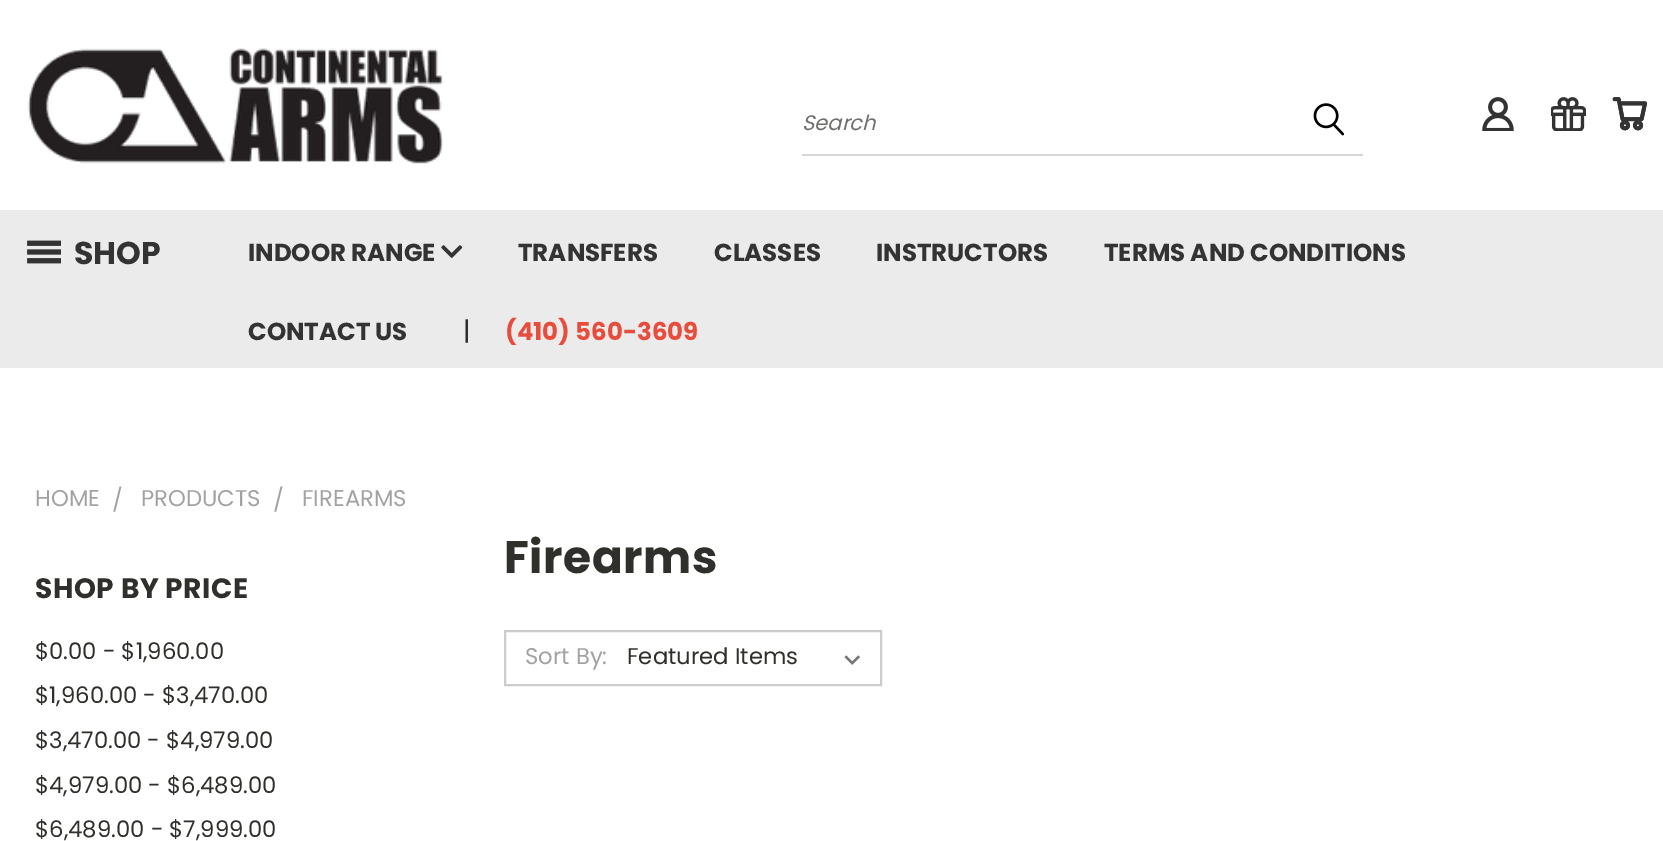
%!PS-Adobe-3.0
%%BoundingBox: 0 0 1663 841
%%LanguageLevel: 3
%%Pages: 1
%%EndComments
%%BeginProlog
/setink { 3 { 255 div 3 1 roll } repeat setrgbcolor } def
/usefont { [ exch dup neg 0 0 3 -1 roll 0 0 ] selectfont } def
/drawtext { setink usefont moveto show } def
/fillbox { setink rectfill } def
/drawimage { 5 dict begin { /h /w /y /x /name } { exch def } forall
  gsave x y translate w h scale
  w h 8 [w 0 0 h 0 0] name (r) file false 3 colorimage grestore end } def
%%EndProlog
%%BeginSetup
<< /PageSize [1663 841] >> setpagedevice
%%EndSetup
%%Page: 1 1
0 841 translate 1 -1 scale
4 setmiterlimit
0 0 1663 841 255 255 255 fillbox
(assets/img1.rgb) 27 48 417 116 drawimage
802 154 561 2 215 215 215 fillbox
(Search) 802 130 /Poppins-Italic 21 112 112 110 drawtext
(assets/img2.rgb) 1313 103 31 33 drawimage
(assets/img3.rgb) 1482 97 32 34 drawimage
(assets/img4.rgb) 1551 97 35 34 drawimage
(assets/img5.rgb) 1612 97 35 34 drawimage
0 210 1663 158 235 235 235 fillbox
(assets/img6.rgb) 27 240 34 24 drawimage
(SHOP) 74 264 /Poppins-Bold 31.5 51 51 51 drawtext
(INDOOR RANGE) 248 261 /Poppins-Bold 24.5 51 51 51 drawtext
(assets/img7.rgb) 441 245 22 13 drawimage
(TRANSFERS) 518 261 /Poppins-Bold 24.5 51 51 51 drawtext
(CLASSES) 714 261 /Poppins-Bold 24.5 51 51 51 drawtext
(INSTRUCTORS) 876 261 /Poppins-Bold 24.5 51 51 51 drawtext
(TERMS AND CONDITIONS) 1104 261 /Poppins-Bold 24.5 51 51 51 drawtext
(CONTACT US) 248 340 /Poppins-Bold 24.5 51 51 51 drawtext
(|) 463 340 /Poppins-Regular 26 47 47 43 drawtext
(\(410\) 560-3609) 505 340 /Poppins-Bold 24.5 231 76 60 drawtext
(HOME) 35 506 /Poppins-Regular 22.75 162 162 162 drawtext
(/) 112 508 /Poppins-Regular 22.75 162 162 162 drawtext
(PRODUCTS) 141 506 /Poppins-Regular 22.75 162 162 162 drawtext
(/) 273 508 /Poppins-Regular 22.75 162 162 162 drawtext
(FIREARMS) 302 506 /Poppins-Regular 22.75 162 162 162 drawtext
/Poppins-Bold 28 usefont
47 47 43 setink
35 598 moveto 0.5 0 (SHOP BY PRICE) ashow
($0.00 - $1,960.00) 35 659 /Poppins-Regular 22.75 47 47 43 drawtext
($1,960.00 - $3,470.00) 35 703 /Poppins-Regular 22.75 47 47 43 drawtext
($3,470.00 - $4,979.00) 35 748 /Poppins-Regular 22.75 47 47 43 drawtext
($4,979.00 - $6,489.00) 35 793 /Poppins-Regular 22.75 47 47 43 drawtext
($6,489.00 - $7,999.00) 35 837 /Poppins-Regular 22.75 47 47 43 drawtext
/Poppins-Bold 45.5 usefont
504 573 moveto 0.5 0 (Firearms) ashow
204 204 204 setink
2 setlinewidth
505 631 376 54 rectstroke
(Sort By:) 525 664 /Poppins-Regular 22.75 162 162 162 drawtext
(assets/img8.rgb) 844 655 16 10 drawimage
(Featured Items) 627 664 /Poppins-Regular 22.75 47 47 43 drawtext
showpage
%%EOF
